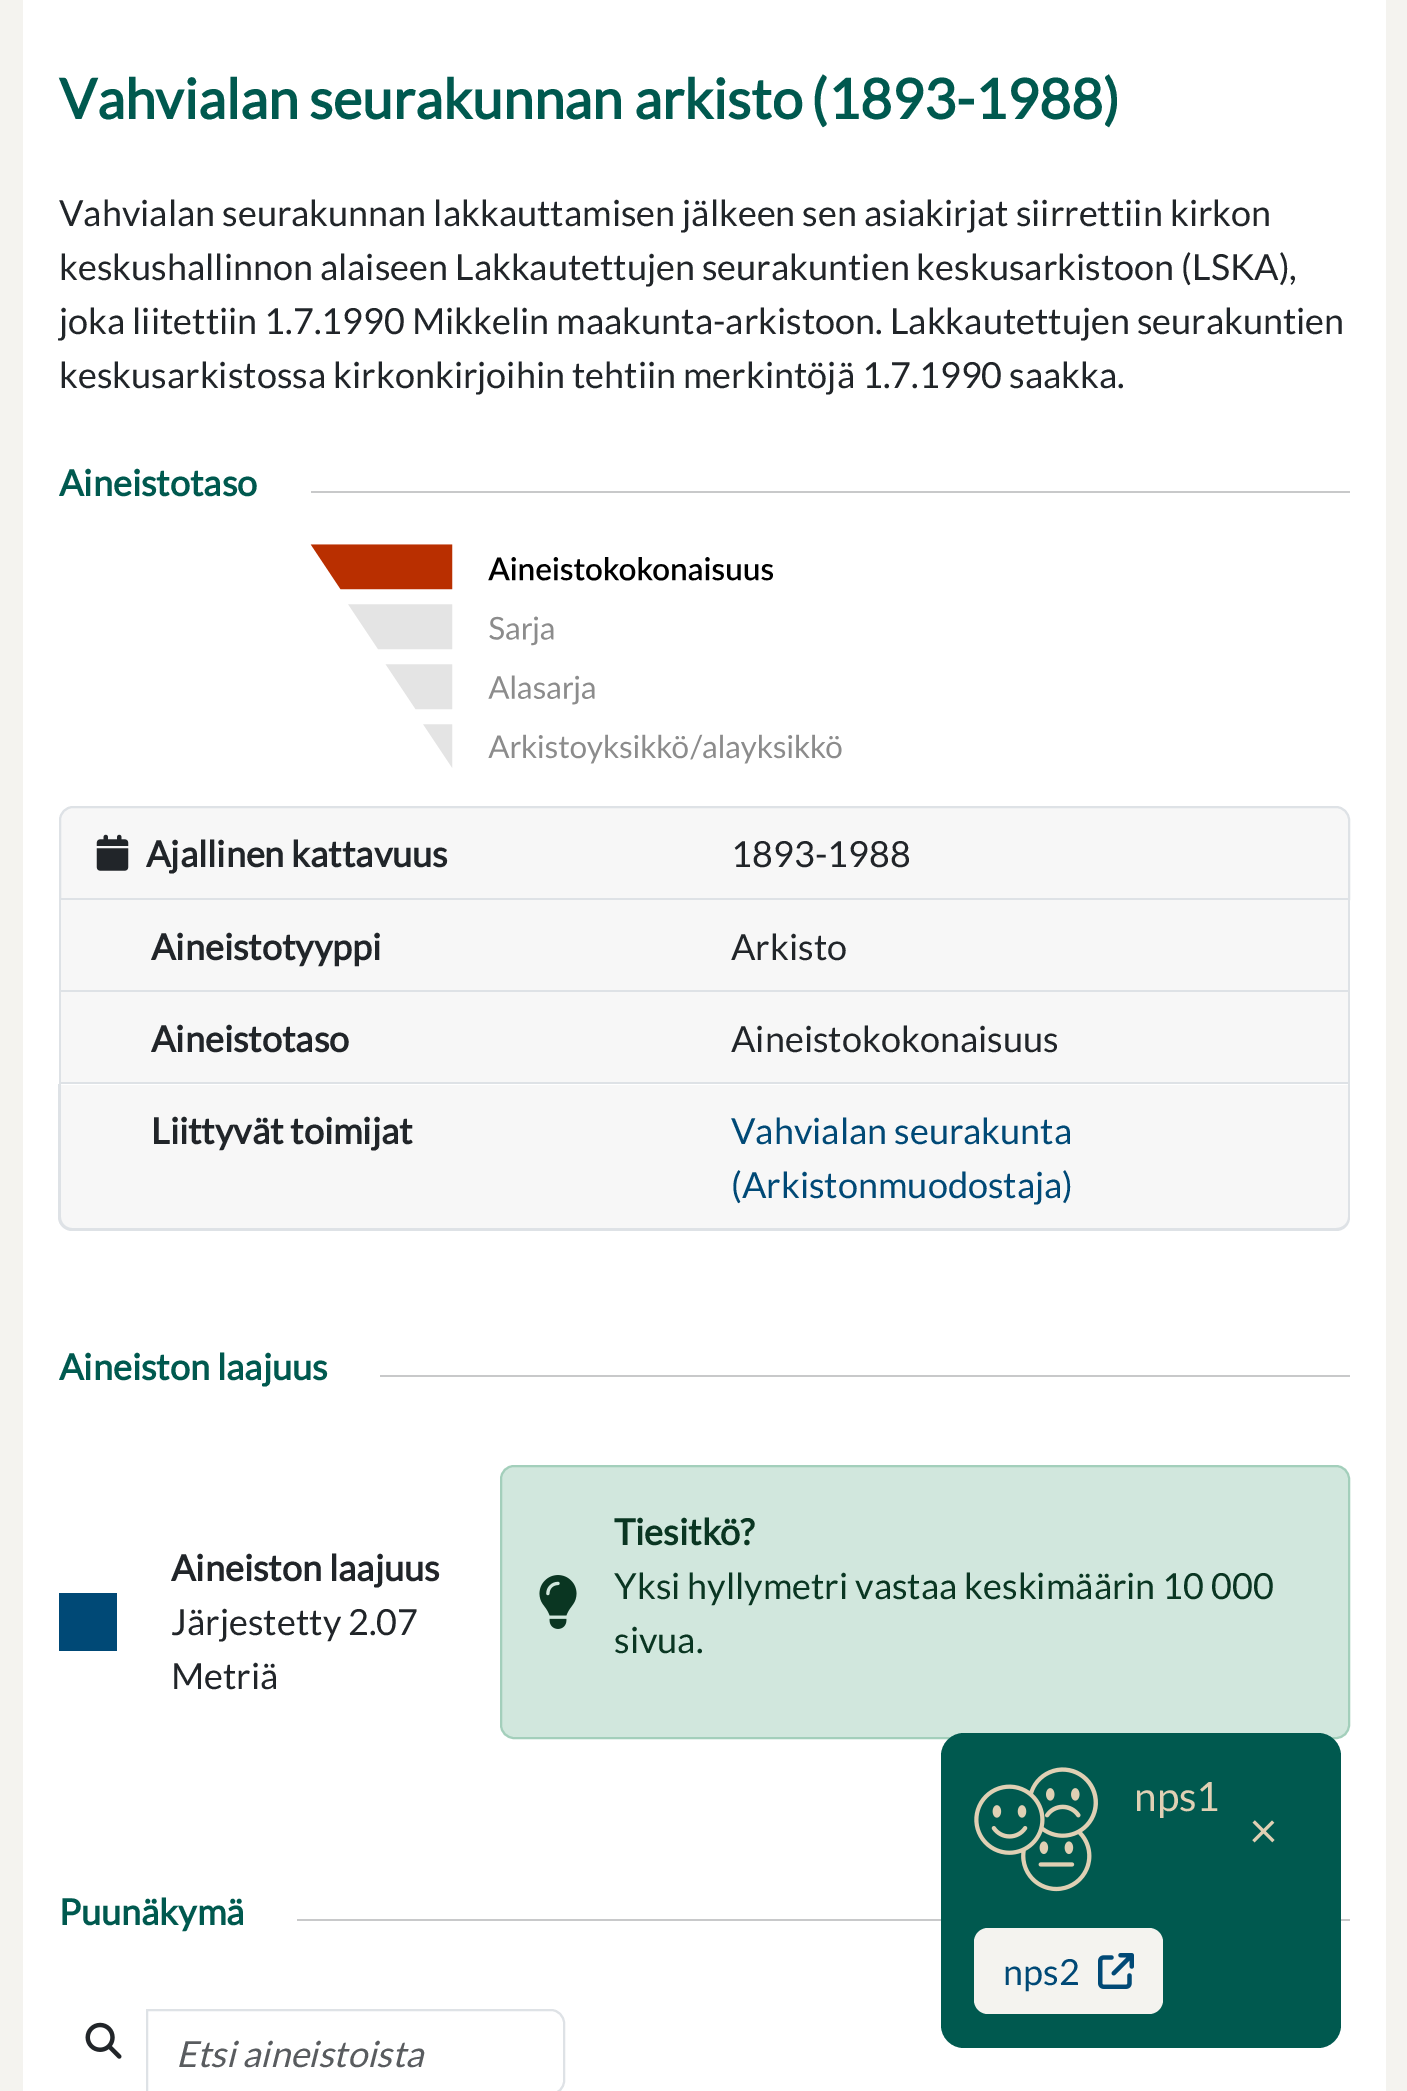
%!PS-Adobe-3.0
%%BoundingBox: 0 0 1407 2091
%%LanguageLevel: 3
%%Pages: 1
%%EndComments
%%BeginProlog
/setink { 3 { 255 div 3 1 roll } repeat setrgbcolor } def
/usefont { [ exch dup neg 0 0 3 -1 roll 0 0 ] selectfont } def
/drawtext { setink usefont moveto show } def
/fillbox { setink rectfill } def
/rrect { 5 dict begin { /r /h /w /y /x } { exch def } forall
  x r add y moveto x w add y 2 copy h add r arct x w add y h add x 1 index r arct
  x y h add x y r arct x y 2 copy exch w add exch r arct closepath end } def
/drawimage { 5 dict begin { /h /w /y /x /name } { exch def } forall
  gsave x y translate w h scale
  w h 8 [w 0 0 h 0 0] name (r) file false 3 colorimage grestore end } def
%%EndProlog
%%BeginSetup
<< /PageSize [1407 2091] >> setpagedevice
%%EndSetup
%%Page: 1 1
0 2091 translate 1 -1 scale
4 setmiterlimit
0 0 1407 2091 244 243 239 fillbox
23 0 1363 2091 255 255 255 fillbox
(Vahvialan seurakunnan arkisto) 59 119 /Lato-Bold 55.25 0 89 79 drawtext
(\(1893-1988\)) 811 119 /Lato-Bold 55.25 0 89 79 drawtext
(Vahvialan seurakunnan lakkauttamisen jälkeen sen asiakirjat siirrettiin kirkon) 59 226 /Lato-Regular 36 33 37 41 drawtext
(keskushallinnon alaiseen Lakkautettujen seurakuntien keskusarkistoon \(LSKA\),) 59 280 /Lato-Regular 36 33 37 41 drawtext
(joka liitettiin 1.7.1990 Mikkelin maakunta-arkistoon. Lakkautettujen seurakuntien) 59 334 /Lato-Regular 36 33 37 41 drawtext
(keskusarkistossa kirkonkirjoihin tehtiin merkintöjä 1.7.1990 saakka.) 59 388 /Lato-Regular 36 33 37 41 drawtext
(Aineistotaso) 59 496 /Lato-Bold 36 0 89 79 drawtext
311 491 1039 2 200 201 202 fillbox
(assets/img1.rgb) 310 544 532 224 drawimage
247 247 247 setink
73 807 moveto 1336 807 lineto 1343 807 1349 813 1349 820 curveto 1349 899 lineto 60 899 lineto 60 820 lineto 60 813 66 807 73 807 curveto closepath gsave fill grestore
222 226 230 setink
2 setlinewidth
stroke
(assets/img2.rgb) 96 834 33 37 drawimage
(Ajallinen kattavuus) 146 867 /Lato-Bold 36 33 37 41 drawtext
(1893-1988) 731 867 /Lato-Regular 36 33 37 41 drawtext
61 900 1287 90 247 247 247 fillbox
1348 900 2 185 222 226 230 fillbox
59 990 1291 2 222 226 230 fillbox
59 900 2 92 222 226 230 fillbox
(Aineistotyyppi) 151 960 /Lato-Bold 36 33 37 41 drawtext
(Arkisto) 731 960 /Lato-Regular 36 33 37 41 drawtext
61 992 1287 90 247 247 247 fillbox
59 1082 1291 2 222 226 230 fillbox
59 992 2 93 222 226 230 fillbox
(Aineistotaso) 151 1052 /Lato-Bold 36 33 37 41 drawtext
(Aineistokokonaisuus) 731 1052 /Lato-Regular 36 33 37 41 drawtext
247 247 247 setink
61 1085 moveto 1348 1085 lineto 1348 1218 lineto 1348 1224 1343 1229 1337 1229 curveto 72 1229 lineto 66 1229 61 1224 61 1218 curveto closepath fill
222 226 230 setink
58 1084 moveto 1350 1084 lineto 1350 1217 lineto 1350 1225 1344 1231 1336 1231 curveto 72 1231 lineto 65 1231 58 1225 58 1217 curveto closepath 61 1084 moveto 1348 1084 lineto 1348 1217 lineto 1348 1223 1343 1228 1336 1228 curveto 72 1228 lineto 66 1228 61 1223 61 1217 curveto closepath eofill
(Liittyvät toimijat) 151 1144 /Lato-Bold 36 33 37 41 drawtext
(Vahvialan seurakunta) 731 1144 /Lato-Regular 36 0 73 118 drawtext
(\(Arkistonmuodostaja\)) 731 1198 /Lato-Regular 36 0 73 118 drawtext
(Aineiston laajuus) 59 1380 /Lato-Bold 36 0 89 79 drawtext
380 1375 970 2 200 201 202 fillbox
59 1593 58 58 0 73 118 fillbox
(Aineiston laajuus) 171 1581 /Lato-Bold 36 33 37 41 drawtext
(Järjestetty 2.07) 171 1635 /Lato-Regular 36 33 37 41 drawtext
(Metriä) 171 1689 /Lato-Regular 36 33 37 41 drawtext
209 231 221 setink
501 1466 848 272 13 rrect gsave fill grestore
163 207 187 setink
stroke
(assets/img3.rgb) 539 1575 38 54 drawimage
(Tiesitkö?) 614 1545 /Lato-Bold 36 10 54 34 drawtext
(Yksi hyllymetri vastaa keskimäärin 10 000) 614 1599 /Lato-Regular 36 10 54 34 drawtext
(sivua.) 614 1653 /Lato-Regular 36 10 54 34 drawtext
(Puunäkymä) 59 1925 /Lato-Bold 36 0 89 79 drawtext
297 1919 1053 2 200 201 202 fillbox
(assets/img4.rgb) 85 2022 37 37 drawimage
222 226 230 setink
147 2010 moveto 551 2010 lineto 558 2010 564 2016 564 2023 curveto 564 2081 lineto 564 2088 558 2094 551 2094 curveto 147 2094 lineto closepath stroke
(Etsi aineistoista) 176 2067 /Lato-Italic 36 89 92 95 drawtext
0 89 79 setink
941 1733 400 315 23 rrect fill
(assets/img5.rgb) 974 1767 124 125 drawimage
(nps1) 1134 1811 /Lato-Regular 40.5 224 208 180 drawtext
(×) 1249 1848 /Lato-Regular 50 224 208 180 drawtext
244 243 239 setink
974 1928 189 86 14 rrect fill
(nps2) 1003 1985 /Lato-Regular 36 0 73 118 drawtext
(assets/img6.rgb) 1098 1953 36 36 drawimage
showpage
%%EOF
